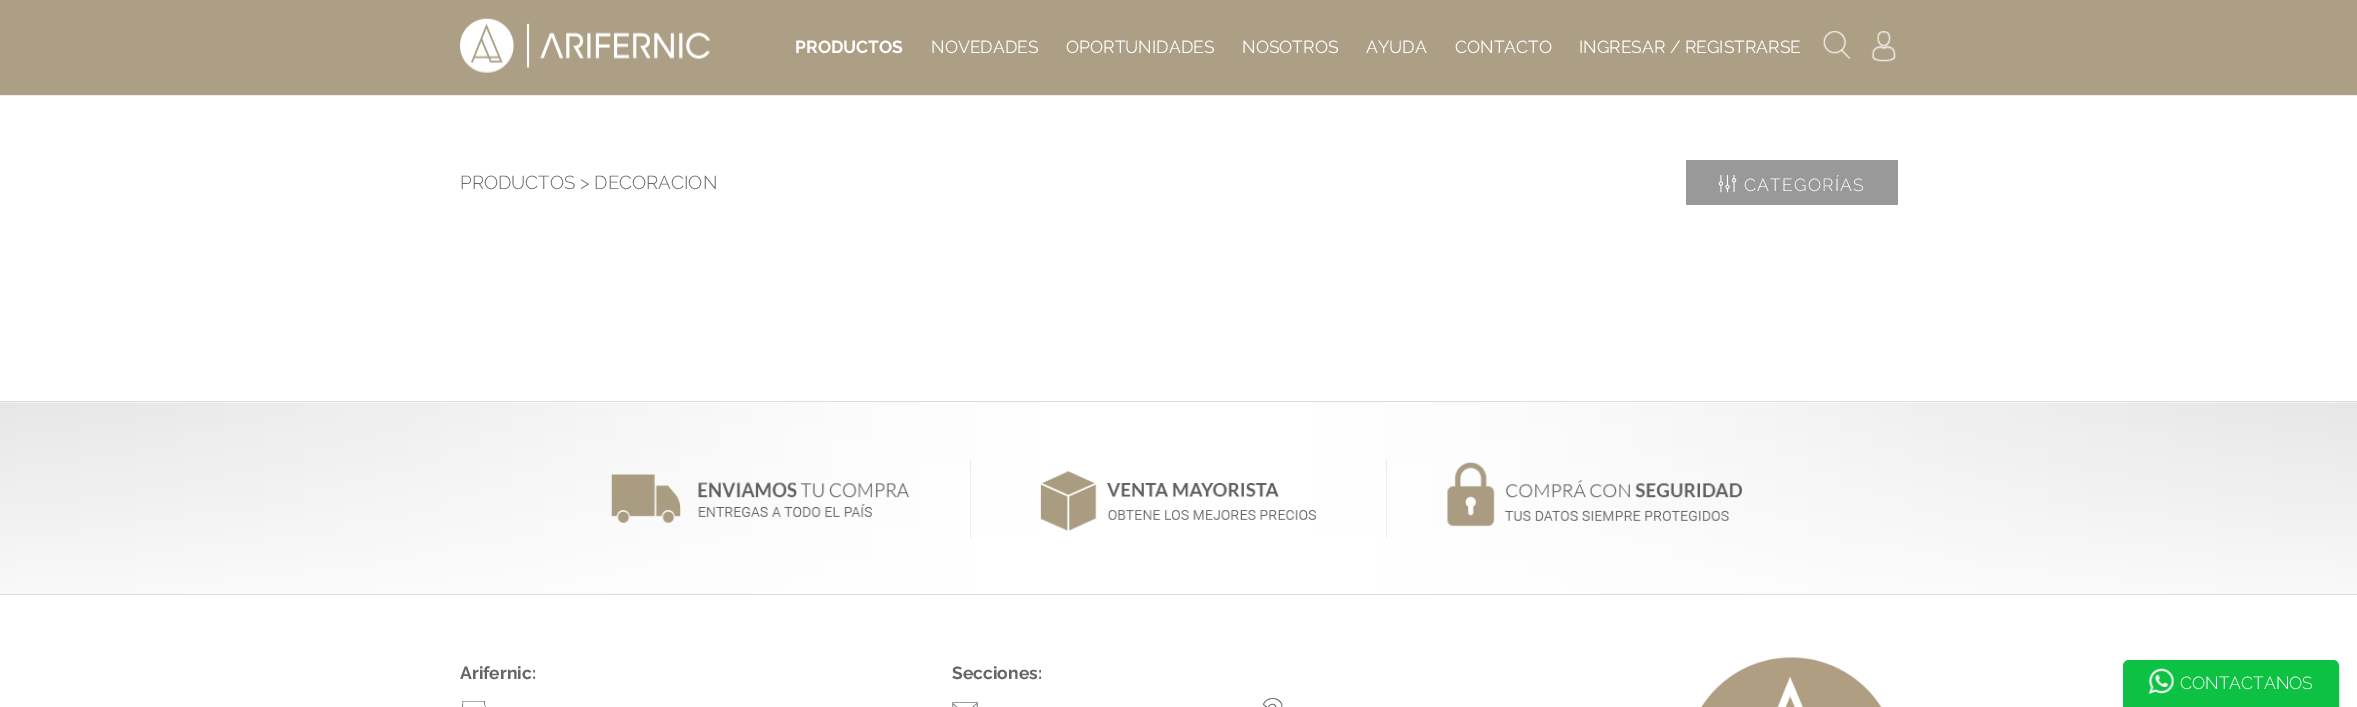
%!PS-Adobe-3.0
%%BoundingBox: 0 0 2357 707
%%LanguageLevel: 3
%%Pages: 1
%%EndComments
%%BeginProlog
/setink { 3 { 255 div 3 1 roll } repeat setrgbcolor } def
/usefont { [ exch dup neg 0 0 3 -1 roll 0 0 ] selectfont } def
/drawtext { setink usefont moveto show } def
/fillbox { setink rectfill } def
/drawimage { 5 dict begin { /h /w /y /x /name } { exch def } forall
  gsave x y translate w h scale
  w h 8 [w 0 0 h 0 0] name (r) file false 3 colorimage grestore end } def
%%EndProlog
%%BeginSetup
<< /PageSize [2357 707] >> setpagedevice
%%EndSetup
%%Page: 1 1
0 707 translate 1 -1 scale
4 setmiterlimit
0 0 2357 707 255 255 255 fillbox
0 0 2357 95 172 159 133 fillbox
0 95 2357 1 238 238 238 fillbox
(assets/img1.rgb) 460 18 250 55 drawimage
(PRODUCTOS) 795 53 /Raleway-Bold 17.5 255 255 255 drawtext
(NOVEDADES) 931 53 /Raleway-Regular 17.5 255 255 255 drawtext
(OPORTUNIDADES) 1066 53 /Raleway-Regular 17.5 255 255 255 drawtext
(NOSOTROS) 1242 53 /Raleway-Regular 17.5 255 255 255 drawtext
(AYUDA) 1366 53 /Raleway-Regular 17.5 255 255 255 drawtext
(CONTACTO) 1455 53 /Raleway-Regular 17.5 255 255 255 drawtext
(INGRESAR / REGISTRARSE) 1579 53 /Raleway-Regular 17.5 255 255 255 drawtext
(assets/img2.rgb) 1823 31 28 29 drawimage
(assets/img3.rgb) 1871 31 25 31 drawimage
(PRODUCTOS > DECORACION) 460 189 /Raleway-Light 18.75 102 102 102 drawtext
1686 160 212 45 153 153 153 fillbox
(assets/img4.rgb) 1718 174 19 19 drawimage
/Raleway-Light 17.5 usefont
255 255 255 setink
1744 191 moveto 1.25 0 (CATEGORÍAS) ashow
(assets/img5.rgb) 0 402 2357 192 drawimage
0 401 2357 1 221 221 221 fillbox
0 594 2357 1 221 221 221 fillbox
(assets/img6.rgb) 611 474 299 49 drawimage
1386 459 1 79 238 238 238 fillbox
970 459 1 79 238 238 238 fillbox
(assets/img7.rgb) 1040 471 277 60 drawimage
(assets/img8.rgb) 1447 462 296 65 drawimage
(Arifernic:) 460 679 /Raleway-Bold 17.5 102 102 102 drawtext
(assets/img9.rgb) 461 701 25 6 drawimage
(Secciones:) 952 679 /Raleway-Bold 17.5 102 102 102 drawtext
(assets/img10.rgb) 952 702 26 5 drawimage
(assets/img11.rgb) 1263 698 20 9 drawimage
(assets/img12.rgb) 1701 657 181 50 drawimage
13 193 67 setink
2129 660.5 moveto 2333 660.5 lineto 2336 660.5 2338.5 663 2338.5 666 curveto 2338.5 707.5 lineto 2123.5 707.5 lineto 2123.5 666 lineto 2123.5 663 2126 660.5 2129 660.5 curveto closepath gsave fill grestore
stroke
(assets/img13.rgb) 2148 668 26 26 drawimage
(CONTACTANOS) 2180 689 /Raleway-Light 17.5 255 255 255 drawtext
showpage
%%EOF
